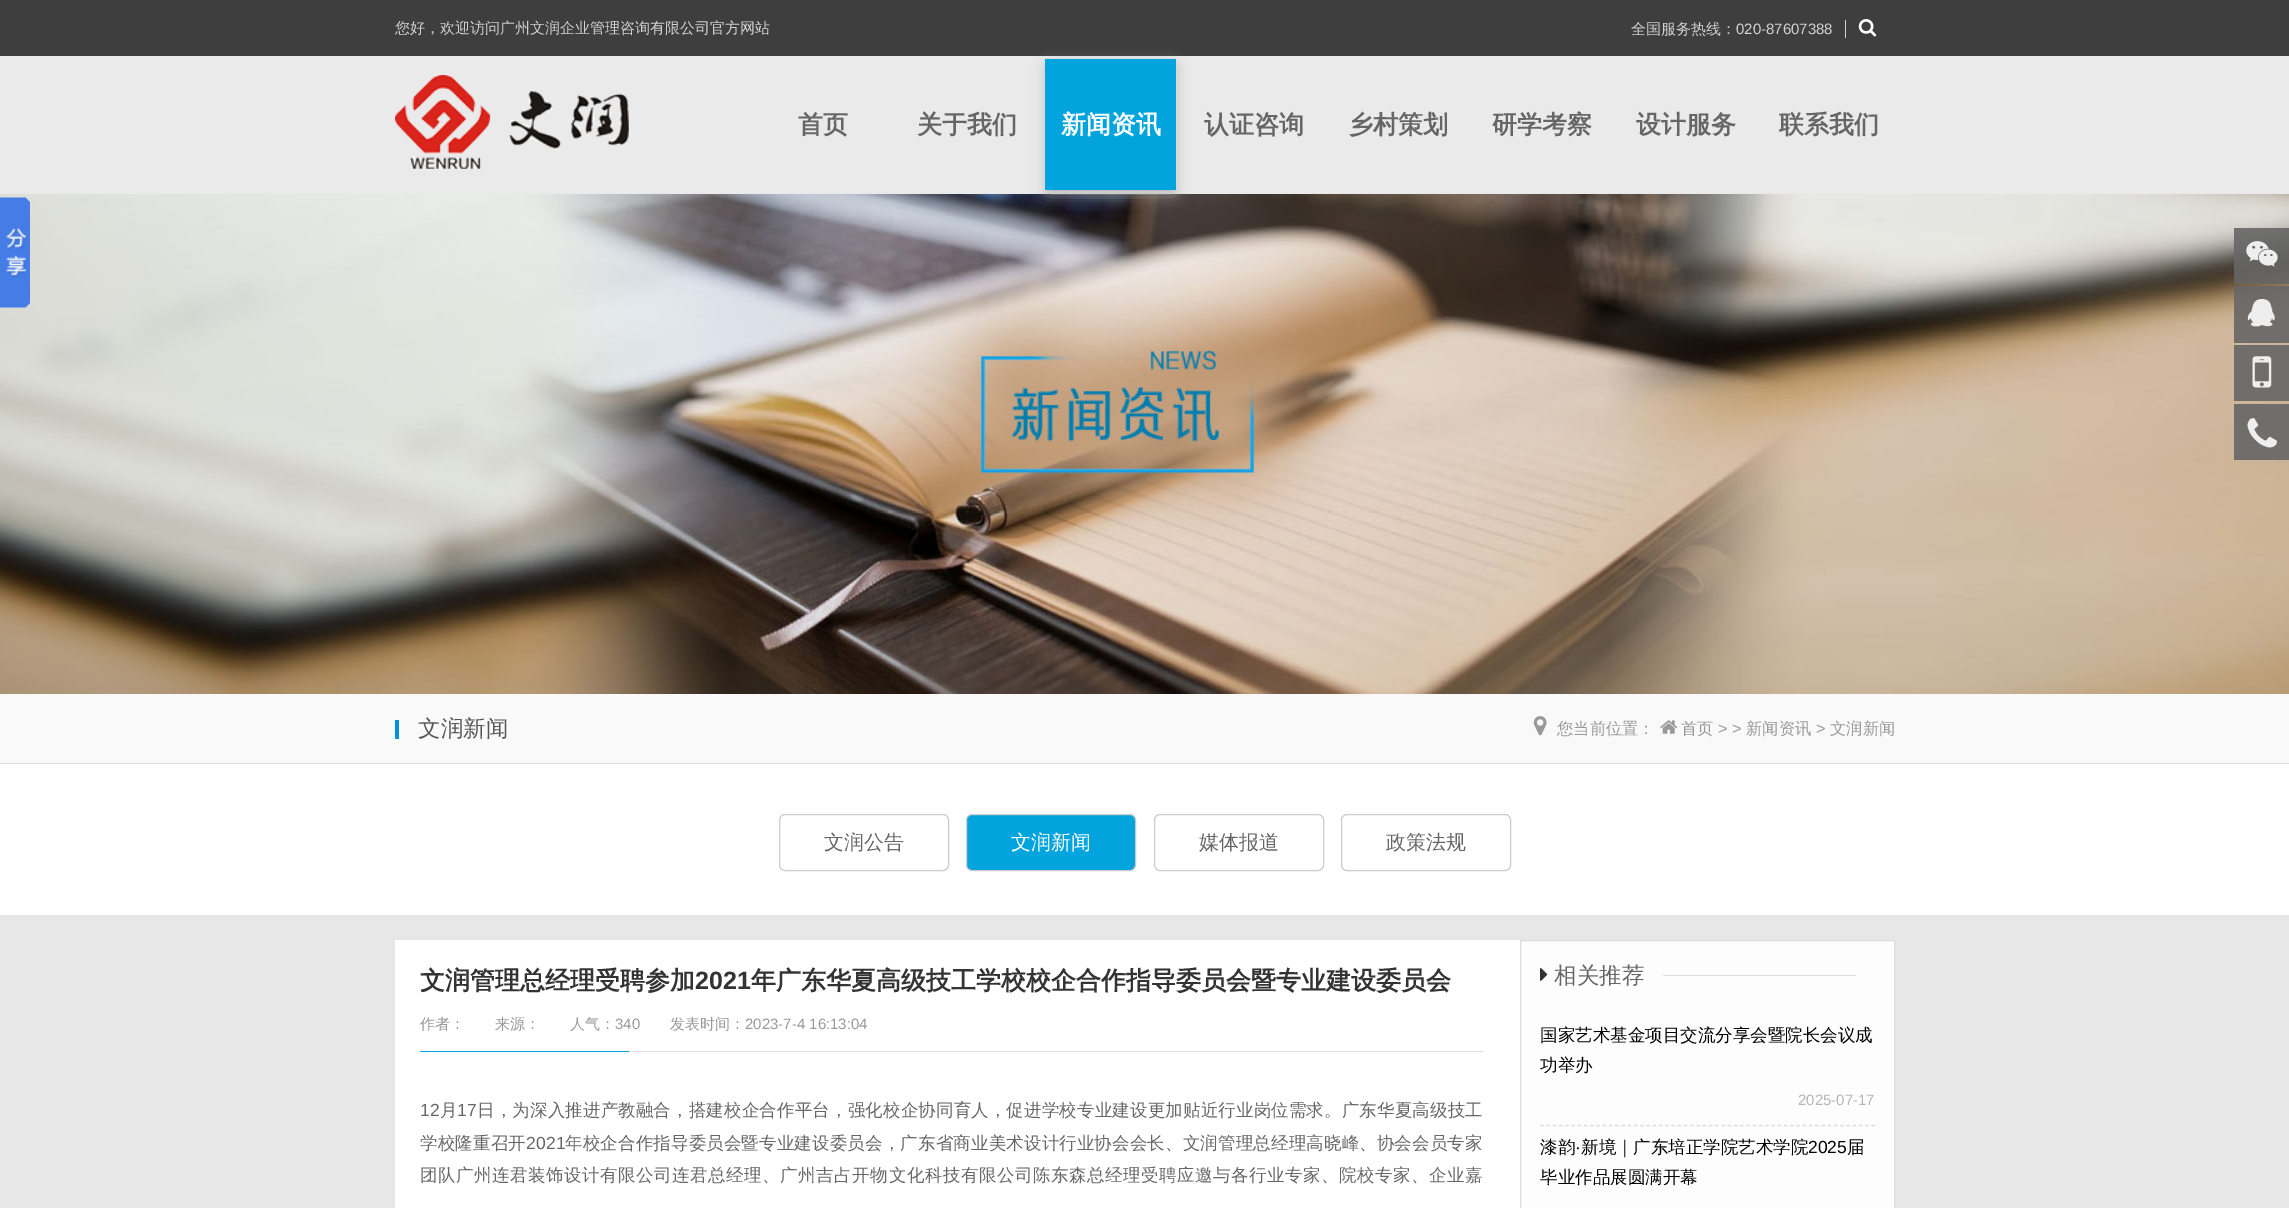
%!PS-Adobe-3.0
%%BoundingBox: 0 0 2289 1208
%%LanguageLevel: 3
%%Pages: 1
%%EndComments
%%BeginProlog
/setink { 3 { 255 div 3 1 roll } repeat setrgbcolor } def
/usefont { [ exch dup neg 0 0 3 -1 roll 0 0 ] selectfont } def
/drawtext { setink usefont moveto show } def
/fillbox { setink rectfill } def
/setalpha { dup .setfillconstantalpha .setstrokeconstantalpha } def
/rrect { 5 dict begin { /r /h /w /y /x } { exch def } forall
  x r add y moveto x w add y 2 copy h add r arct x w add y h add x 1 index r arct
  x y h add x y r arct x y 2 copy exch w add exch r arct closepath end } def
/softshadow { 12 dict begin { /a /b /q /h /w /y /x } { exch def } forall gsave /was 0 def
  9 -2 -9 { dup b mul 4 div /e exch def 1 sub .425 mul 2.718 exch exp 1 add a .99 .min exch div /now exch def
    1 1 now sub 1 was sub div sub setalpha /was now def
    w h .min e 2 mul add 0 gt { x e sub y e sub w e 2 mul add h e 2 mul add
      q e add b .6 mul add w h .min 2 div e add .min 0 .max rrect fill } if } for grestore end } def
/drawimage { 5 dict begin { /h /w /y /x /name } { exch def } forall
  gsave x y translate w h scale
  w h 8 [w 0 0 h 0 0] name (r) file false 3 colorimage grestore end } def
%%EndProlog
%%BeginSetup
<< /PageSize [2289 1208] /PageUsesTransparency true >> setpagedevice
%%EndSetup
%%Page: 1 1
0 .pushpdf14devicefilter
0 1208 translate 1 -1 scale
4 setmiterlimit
0 0 2289 1208 255 255 255 fillbox
0 0 2289 56 62 62 62 fillbox
(您好，欢迎访问广州文润企业管理咨询有限公司官方网站) 395 33 /WenQuanYiZenHei-Medium 15 210 210 210 drawtext
(全国服务热线：) 1631 34 /WenQuanYiZenHei-Medium 15 210 210 210 drawtext
(020-87607388) 1736 34 /LiberationSans-Regular 15 210 210 210 drawtext
1845 20 1 18 210 210 210 fillbox
(assets/img1.rgb) 1858 19 19 18 drawimage
0 56 2289 138 234 234 234 fillbox
(assets/img2.rgb) 395 75 234 94 drawimage
(首页) 798 133 /WenQuanYiZenHei-Bold 25 102 102 102 drawtext
(关于我们) 917 133 /WenQuanYiZenHei-Bold 25 102 102 102 drawtext
(assets/img3.rgb) 0 194 2289 500 drawimage
170 170 170 setink
1048 66 126 127 0 7.5 1 softshadow
1045 59 131 131 2 164 221 fillbox
(新闻资讯) 1061 133 /WenQuanYiZenHei-Bold 25 255 255 255 drawtext
(认证咨询) 1204 133 /WenQuanYiZenHei-Bold 25 102 102 102 drawtext
(乡村策划) 1348 133 /WenQuanYiZenHei-Bold 25 102 102 102 drawtext
(研学考察) 1492 133 /WenQuanYiZenHei-Bold 25 102 102 102 drawtext
(设计服务) 1636 133 /WenQuanYiZenHei-Bold 25 102 102 102 drawtext
(联系我们) 1779 133 /WenQuanYiZenHei-Bold 25 102 102 102 drawtext
(assets/img4.rgb) 0 197 30 111 drawimage
0.9 setalpha
2234 228 55 56 102 102 102 fillbox
1 setalpha
(assets/img5.rgb) 2246 241 32 26 drawimage
0.9 setalpha
2234 286 55 57 102 102 102 fillbox
1 setalpha
(assets/img6.rgb) 2247 298 28 29 drawimage
0.9 setalpha
2234 345 55 56 102 102 102 fillbox
1 setalpha
(assets/img7.rgb) 2252 356 20 32 drawimage
0.9 setalpha
2234 404 55 56 102 102 102 fillbox
1 setalpha
(assets/img8.rgb) 2247 418 30 30 drawimage
0 694 2289 69 249 249 249 fillbox
0 763 2289 1 221 221 221 fillbox
395 720 4 19 0 146 216 fillbox
(文润新闻) 418 736 /WenQuanYiZenHei-Medium 22.5 85 85 85 drawtext
(assets/img9.rgb) 1533 716 14 20 drawimage
(您当前位置：) 1557 734 /WenQuanYiZenHei-Medium 16.25 153 153 153 drawtext
(assets/img10.rgb) 1660 720 17 14 drawimage
(首页) 1681 734 /WenQuanYiZenHei-Medium 16.25 153 153 153 drawtext
(> >) 1718 734 /LiberationSans-Regular 16.25 153 153 153 drawtext
(新闻资讯) 1746 734 /WenQuanYiZenHei-Medium 16.25 153 153 153 drawtext
(>) 1816 734 /LiberationSans-Regular 16.25 153 153 153 drawtext
(文润新闻) 1830 734 /WenQuanYiZenHei-Medium 16.25 153 153 153 drawtext
204 204 204 setink
779.5 814.5 169 56 5.5 rrect stroke
(文润公告) 824 849 /WenQuanYiZenHei-Medium 20 102 102 102 drawtext
2 164 221 setink
966.5 814.5 169 56 5.5 rrect gsave fill grestore
204 204 204 setink
stroke
(文润新闻) 1011 849 /WenQuanYiZenHei-Medium 20 255 255 255 drawtext
204 204 204 setink
1154.5 814.5 169 56 5.5 rrect stroke
(媒体报道) 1199 849 /WenQuanYiZenHei-Medium 20 102 102 102 drawtext
204 204 204 setink
1341.5 814.5 169 56 5.5 rrect stroke
(政策法规) 1386 849 /WenQuanYiZenHei-Medium 20 102 102 102 drawtext
0 915 2289 293 231 231 231 fillbox
395 940 1125 268 255 255 255 fillbox
629 1051 854 1 221 221 221 fillbox
(文润管理总经理受聘参加) 420 989 /WenQuanYiZenHei-Bold 25 51 51 51 drawtext
(2021) 695 989 /LiberationSans-Bold 25 51 51 51 drawtext
(年广东华夏高级技工学校校企合作指导委员会暨专业建设委员会) 751 989 /WenQuanYiZenHei-Bold 25 51 51 51 drawtext
(作者：) 420 1029 /WenQuanYiZenHei-Medium 15 153 153 153 drawtext
(来源：) 495 1029 /WenQuanYiZenHei-Medium 15 153 153 153 drawtext
(人气：) 570 1029 /WenQuanYiZenHei-Medium 15 153 153 153 drawtext
(340) 615 1029 /LiberationSans-Regular 15 153 153 153 drawtext
(发表时间：) 670 1029 /WenQuanYiZenHei-Medium 15 153 153 153 drawtext
(2023-7-4 16:13:04) 745 1029 /LiberationSans-Regular 15 153 153 153 drawtext
420 1051 209 1 2 164 221 fillbox
/LiberationSans-Regular 17.5 usefont
102 102 102 setink
420 1116 moveto 0.15 0 (12) ashow
/WenQuanYiZenHei-Medium 17.5 usefont
440 1116 moveto 0.15 0 (月) ashow
/LiberationSans-Regular 17.5 usefont
457 1116 moveto 0.15 0 (17) ashow
/WenQuanYiZenHei-Medium 17.5 usefont
477 1116 moveto 0.15 0 (日，为深入推进产教融合，搭建校企合作平台，强化校企协同育人，促进学校专业建设更加贴近行业岗位需求。广东华夏高级技工) ashow
420 1149 moveto 0.15 0 (学校隆重召开) ashow
/LiberationSans-Regular 17.5 usefont
526 1149 moveto 0.15 0 (2021) ashow
/WenQuanYiZenHei-Medium 17.5 usefont
565 1149 moveto 0.15 0 (年校企合作指导委员会暨专业建设委员会，广东省商业美术设计行业协会会长、文润管理总经理高晓峰、协会会员专家) ashow
420 1181 moveto 0.52 0 (团队广州连君装饰设计有限公司连君总经理、广州吉占开物文化科技有限公司陈东森总经理受聘应邀与各行业专家、院校专家、企业嘉) ashow
253 253 253 setink
1520.5 940.5 moveto 1894.5 940.5 lineto 1894.5 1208.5 lineto 1520.5 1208.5 lineto closepath gsave fill grestore
221 221 221 setink
stroke
(assets/img11.rgb) 1540 968 8 13 drawimage
(相关推荐) 1554 983 /WenQuanYiZenHei-Medium 22.5 102 102 102 drawtext
1663 975 193 1 221 221 221 fillbox
1.2 setlinewidth
[3.75 2.5] 0 setdash
1540 1125.5 moveto 1875 1125.5 lineto stroke
(国家艺术基金项目交流分享会暨院长会议成) 1540 1041 /WenQuanYiZenHei-Medium 17.5 0 0 0 drawtext
(功举办) 1540 1071 /WenQuanYiZenHei-Medium 17.5 0 0 0 drawtext
(2025-07-17) 1798 1105 /LiberationSans-Regular 15 183 181 181 drawtext
(漆韵) 1540 1153 /WenQuanYiZenHei-Medium 17.5 0 0 0 drawtext
(·) 1575 1153 /LiberationSans-Regular 17.5 0 0 0 drawtext
(新境｜广东培正学院艺术学院) 1581 1153 /WenQuanYiZenHei-Medium 17.5 0 0 0 drawtext
(2025) 1808 1153 /LiberationSans-Regular 17.5 0 0 0 drawtext
(届) 1847 1153 /WenQuanYiZenHei-Medium 17.5 0 0 0 drawtext
(毕业作品展圆满开幕) 1540 1183 /WenQuanYiZenHei-Medium 17.5 0 0 0 drawtext
.poppdf14devicefilter showpage
%%EOF
